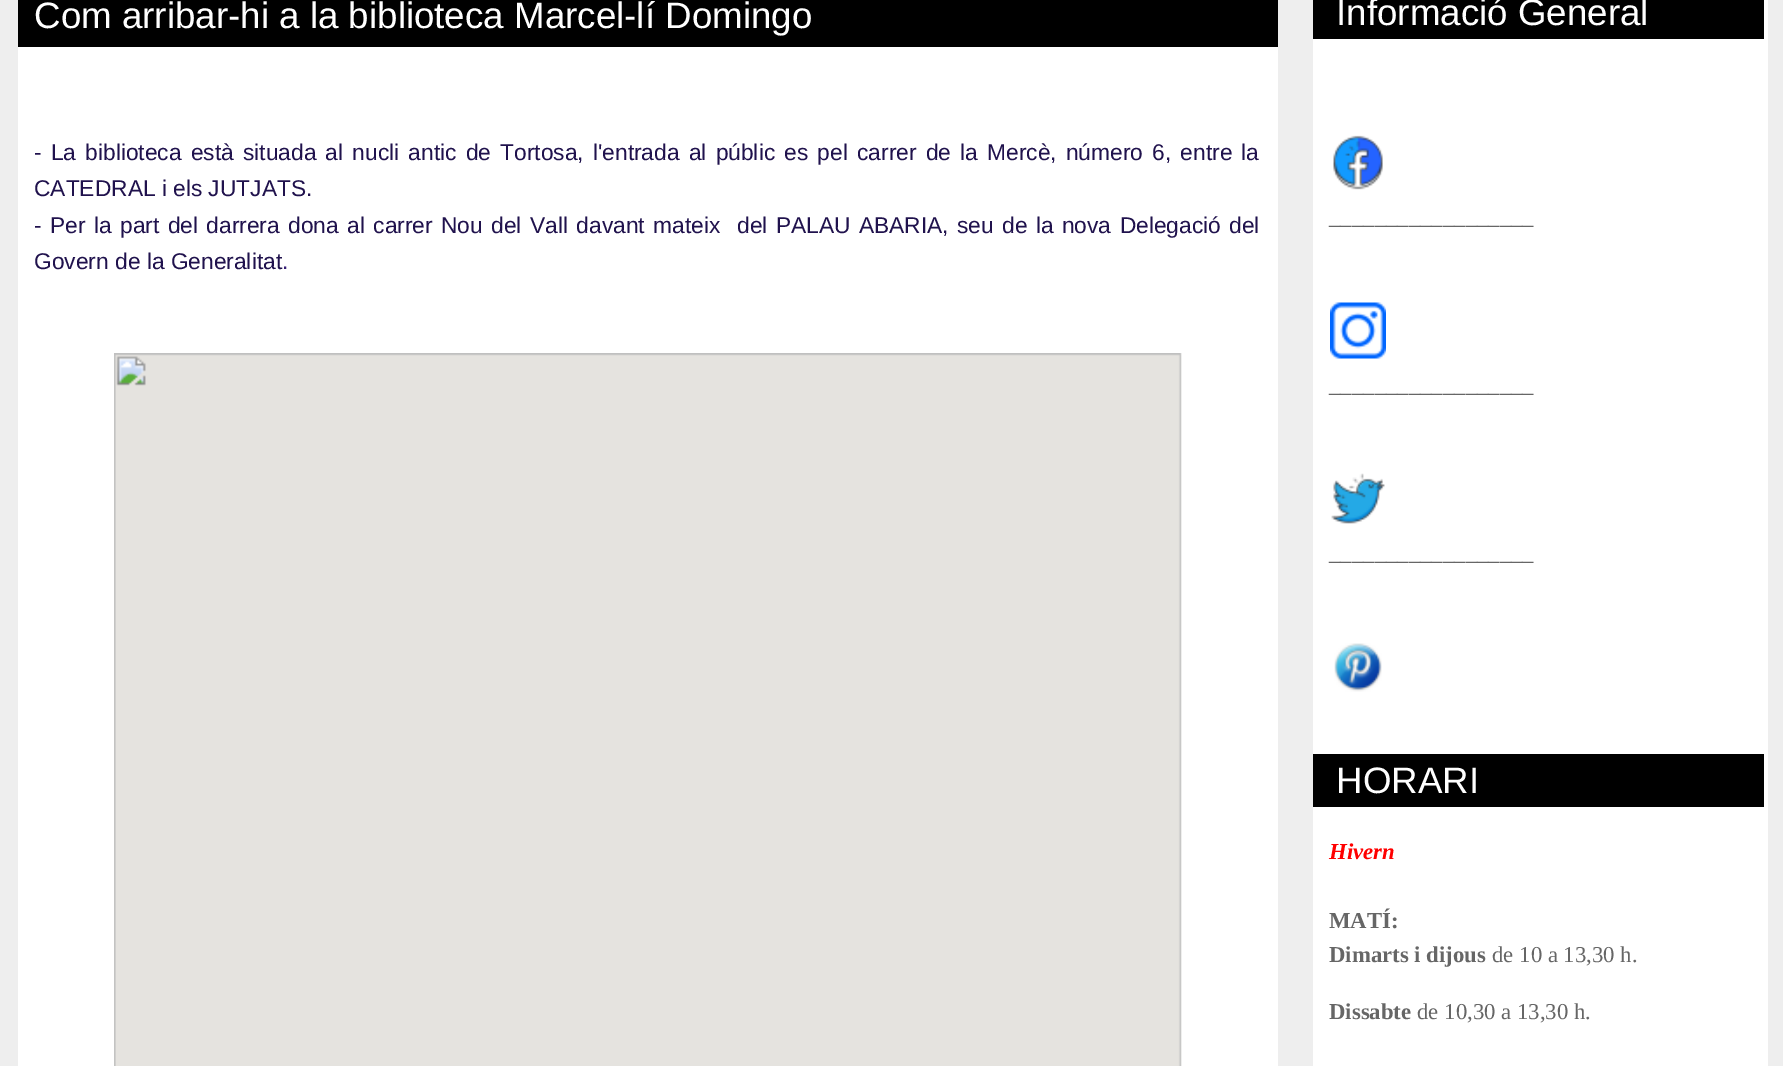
%!PS-Adobe-3.0
%%BoundingBox: 0 0 1783 1066
%%LanguageLevel: 3
%%Pages: 1
%%EndComments
%%BeginProlog
/setink { 3 { 255 div 3 1 roll } repeat setrgbcolor } def
/usefont { [ exch dup neg 0 0 3 -1 roll 0 0 ] selectfont } def
/drawtext { setink usefont moveto show } def
/fillbox { setink rectfill } def
/drawimage { 5 dict begin { /h /w /y /x /name } { exch def } forall
  gsave x y translate w h scale
  w h 8 [w 0 0 h 0 0] name (r) file false 3 colorimage grestore end } def
%%EndProlog
%%BeginSetup
<< /PageSize [1783 1066] >> setpagedevice
%%EndSetup
%%Page: 1 1
0 1066 translate 1 -1 scale
4 setmiterlimit
0 0 1783 1066 238 238 238 fillbox
18 47 1260 1019 255 255 255 fillbox
18 0 1260 47 0 0 0 fillbox
(Com arribar-hi a la biblioteca Marcel-lí Domingo) 34 28 /LiberationSans-Regular 36.75 255 255 255 drawtext
/LiberationSans-Regular 22.75 usefont
32 18 77 setink
34 160 moveto 2.9 0 32 (- La biblioteca està situada al nucli antic de Tortosa, l'entrada al públic es pel carrer de la Mercè, número 6, entre la) widthshow
(CATEDRAL i els JUTJATS.) 34 196 /LiberationSans-Regular 22.75 32 18 77 drawtext
34 233 moveto 2.1 0 32 (- Per la part del darrera dona al carrer Nou del Vall davant mateix  del PALAU ABARIA, seu de la nova Delegació del) widthshow
(Govern de la Generalitat) 34 269 /LiberationSans-Regular 22.75 32 18 77 drawtext
(.) 282 269 /LiberationSans-Regular 22.75 53 28 117 drawtext
(assets/img1.rgb) 114 353 1068 713 drawimage
1313 0 455 1066 255 255 255 fillbox
1313 0 451 39 0 0 0 fillbox
(Informació General) 1336 25 /LiberationSans-Regular 36.75 255 255 255 drawtext
(assets/img2.rgb) 1333 135 50 55 drawimage
(__________________) 1329 224 /LiberationSerif-Regular 22.75 102 102 102 drawtext
(assets/img3.rgb) 1330 302 56 57 drawimage
(__________________) 1329 392 /LiberationSerif-Regular 22.75 102 102 102 drawtext
(assets/img4.rgb) 1331 473 54 51 drawimage
(__________________) 1329 560 /LiberationSerif-Regular 22.75 102 102 102 drawtext
(assets/img5.rgb) 1334 643 48 49 drawimage
1313 754 451 53 0 0 0 fillbox
(HORARI) 1336 793 /LiberationSans-Regular 36.75 255 255 255 drawtext
(Hivern) 1329 859 /LiberationSerif-BoldItalic 22.75 255 0 0 drawtext
(MATÍ:) 1329 928 /LiberationSerif-Bold 22.75 102 102 102 drawtext
(Dimarts i dijous) 1329 962 /LiberationSerif-Bold 22.75 102 102 102 drawtext
(de 10 a 13,30 h.) 1492 962 /LiberationSerif-Regular 22.75 102 102 102 drawtext
(Dissabte) 1329 1019 /LiberationSerif-Bold 22.75 102 102 102 drawtext
(de 10,30 a 13,30 h.) 1417 1019 /LiberationSerif-Regular 22.75 102 102 102 drawtext
showpage
%%EOF
